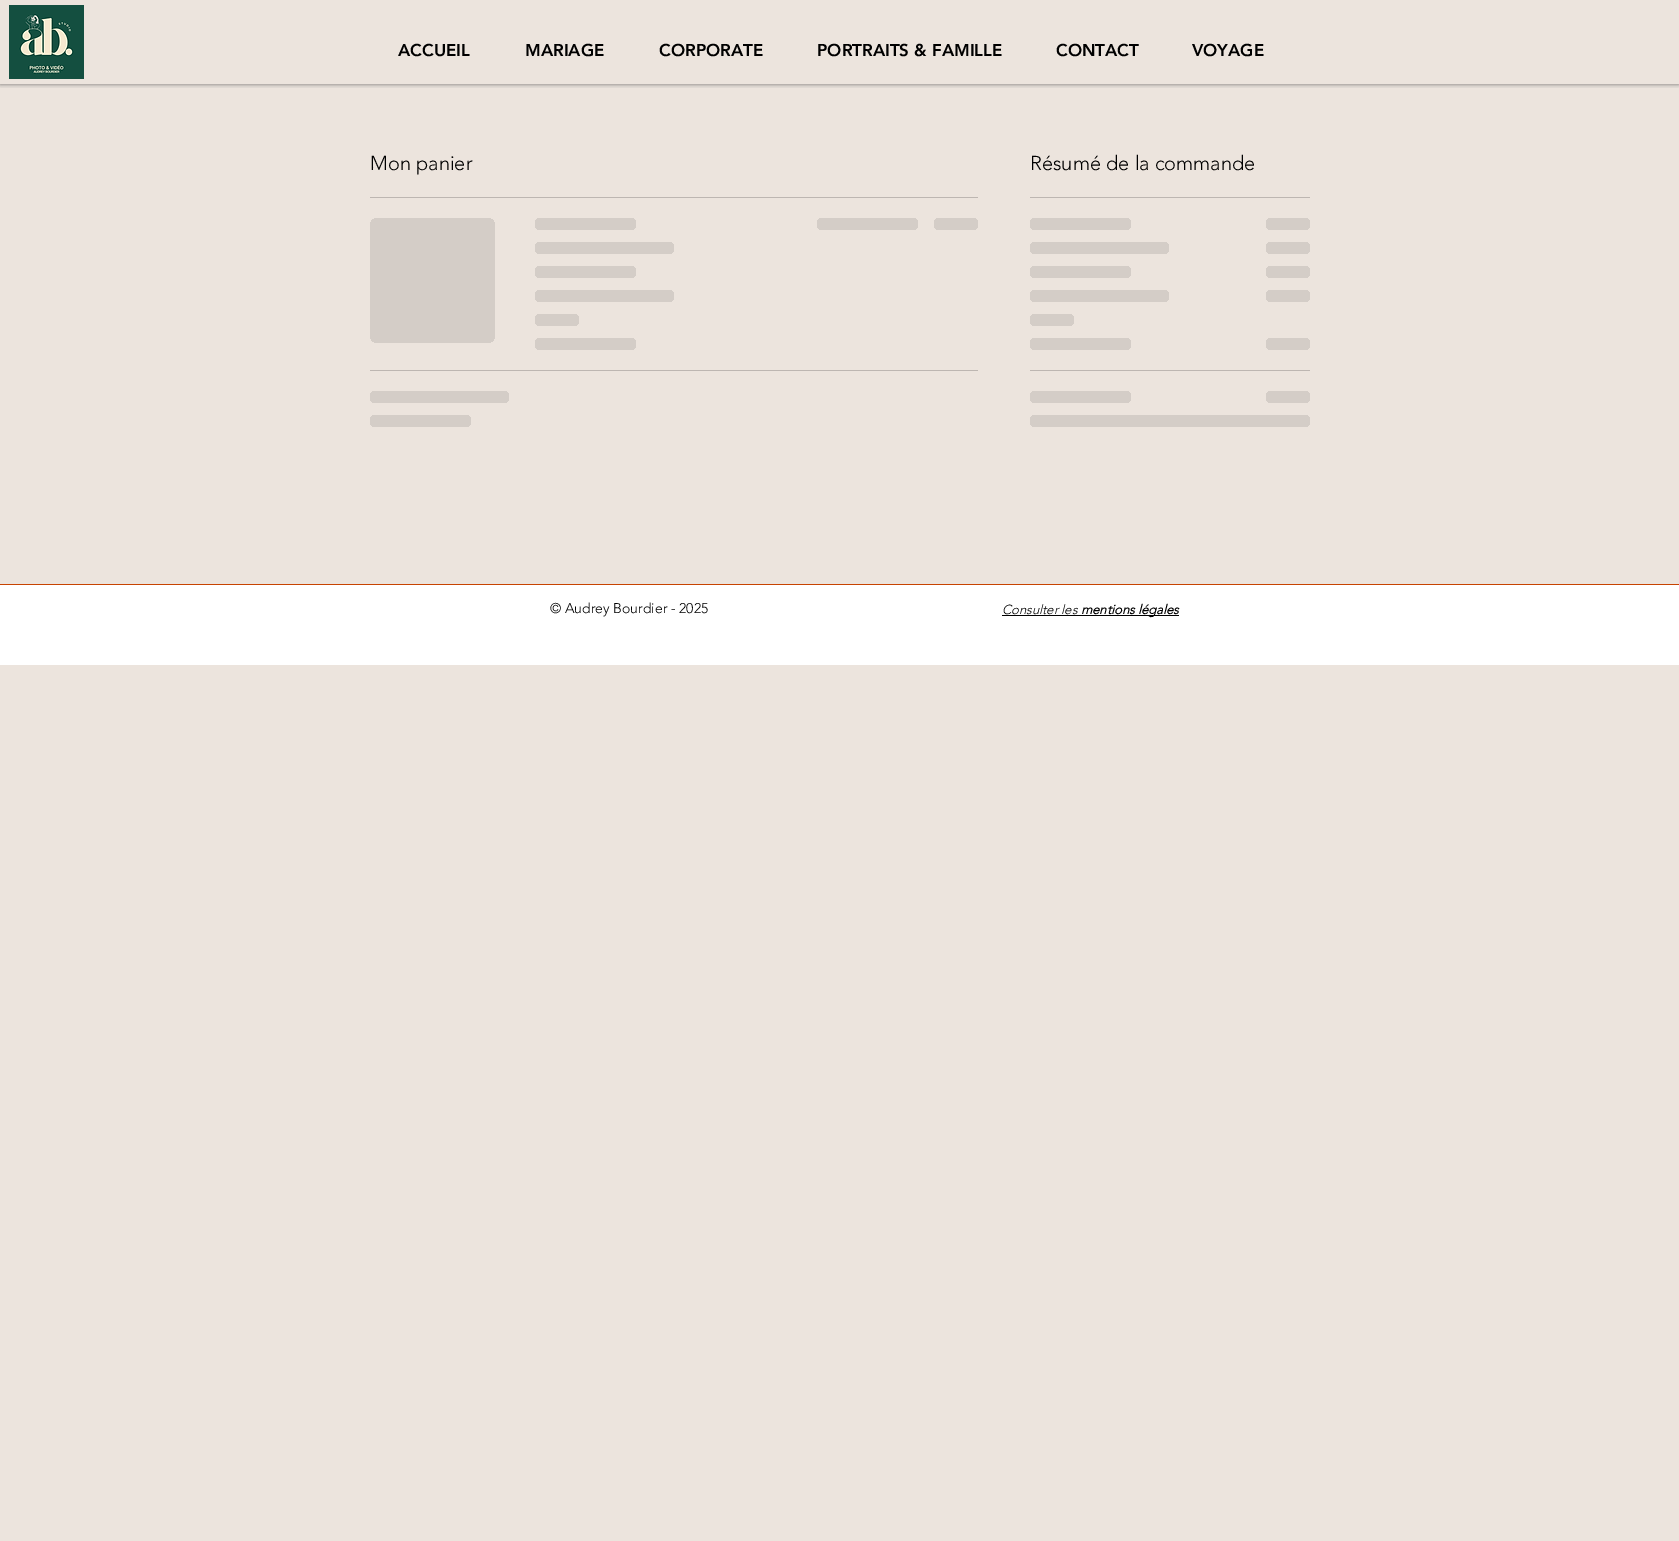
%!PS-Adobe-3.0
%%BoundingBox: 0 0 1679 1541
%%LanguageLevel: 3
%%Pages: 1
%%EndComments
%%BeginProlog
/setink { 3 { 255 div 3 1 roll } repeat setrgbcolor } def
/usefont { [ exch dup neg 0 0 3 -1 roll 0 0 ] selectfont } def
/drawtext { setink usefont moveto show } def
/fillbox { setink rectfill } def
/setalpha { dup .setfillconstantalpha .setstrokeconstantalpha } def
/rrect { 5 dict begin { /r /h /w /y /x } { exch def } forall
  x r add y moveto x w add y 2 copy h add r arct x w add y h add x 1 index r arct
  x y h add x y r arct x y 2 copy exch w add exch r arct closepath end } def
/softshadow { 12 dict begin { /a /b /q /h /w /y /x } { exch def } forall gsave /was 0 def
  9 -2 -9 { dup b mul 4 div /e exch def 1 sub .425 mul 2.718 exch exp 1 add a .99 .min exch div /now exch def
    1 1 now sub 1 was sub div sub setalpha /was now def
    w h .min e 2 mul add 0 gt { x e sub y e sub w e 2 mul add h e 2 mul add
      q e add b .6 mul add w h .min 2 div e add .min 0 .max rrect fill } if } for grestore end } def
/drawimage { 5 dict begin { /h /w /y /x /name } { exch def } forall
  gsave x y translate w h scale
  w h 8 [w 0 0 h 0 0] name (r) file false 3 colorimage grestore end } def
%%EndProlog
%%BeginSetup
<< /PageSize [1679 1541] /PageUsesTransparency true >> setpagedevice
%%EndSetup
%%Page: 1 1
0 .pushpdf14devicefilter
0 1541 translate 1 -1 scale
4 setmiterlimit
0 0 1679 1541 236 228 221 fillbox
gsave
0 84 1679 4 rectclip
0 0 0 setink
0 0 1679 84 0 2.5 0.5 softshadow
grestore
(assets/img1.rgb) 9 5 75 74 drawimage
(ACCUEIL) 398 56 /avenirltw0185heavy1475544-Black 17 0 0 0 drawtext
(MARIAGE) 525 56 /avenirltw0185heavy1475544-Black 17 0 0 0 drawtext
(CORPORATE) 659 56 /avenirltw0185heavy1475544-Black 17 0 0 0 drawtext
(PORTRAITS & FAMILLE) 817 56 /avenirltw0185heavy1475544-Black 17 0 0 0 drawtext
(CONTACT) 1056 56 /avenirltw0185heavy1475544-Black 17 0 0 0 drawtext
(VOYAGE) 1192 56 /avenirltw0185heavy1475544-Black 17 0 0 0 drawtext
370 197 608 1 189 182 177 fillbox
(Mon panier) 370 170 /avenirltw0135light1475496-Light 20 0 0 0 drawtext
gsave 370 218 125 125 8 rrect clip newpath
<< /ShadingType 2 /ColorSpace /DeviceRGB /Coords [370 281 870 281] /Extend [true true] /Function << /FunctionType 3 /Domain [0 1] /Functions [<< /FunctionType 2 /Domain [0 1] /C0 [0.831 0.804 0.78] /C1 [0.831 0.804 0.78] /N 1 >> << /FunctionType 2 /Domain [0 1] /C0 [0.831 0.804 0.78] /C1 [0.741 0.714 0.694] /N 1 >> << /FunctionType 2 /Domain [0 1] /C0 [0.741 0.714 0.694] /C1 [0.831 0.804 0.78] /N 1 >> << /FunctionType 2 /Domain [0 1] /C0 [0.831 0.804 0.78] /C1 [0.831 0.804 0.78] /N 1 >>] /Bounds [0.25 0.37 0.63] /Encode [0 1 0 1 0 1 0 1] >> >> shfill grestore
gsave 535 218 101 12 6 rrect clip newpath
<< /ShadingType 2 /ColorSpace /DeviceRGB /Coords [535 224 939 224] /Extend [true true] /Function << /FunctionType 3 /Domain [0 1] /Functions [<< /FunctionType 2 /Domain [0 1] /C0 [0.831 0.804 0.78] /C1 [0.831 0.804 0.78] /N 1 >> << /FunctionType 2 /Domain [0 1] /C0 [0.831 0.804 0.78] /C1 [0.741 0.714 0.694] /N 1 >> << /FunctionType 2 /Domain [0 1] /C0 [0.741 0.714 0.694] /C1 [0.831 0.804 0.78] /N 1 >> << /FunctionType 2 /Domain [0 1] /C0 [0.831 0.804 0.78] /C1 [0.831 0.804 0.78] /N 1 >>] /Bounds [0.25 0.37 0.63] /Encode [0 1 0 1 0 1 0 1] >> >> shfill grestore
gsave 535 242 139 12 6 rrect clip newpath
<< /ShadingType 2 /ColorSpace /DeviceRGB /Coords [535 248 1091 248] /Extend [true true] /Function << /FunctionType 3 /Domain [0 1] /Functions [<< /FunctionType 2 /Domain [0 1] /C0 [0.831 0.804 0.78] /C1 [0.831 0.804 0.78] /N 1 >> << /FunctionType 2 /Domain [0 1] /C0 [0.831 0.804 0.78] /C1 [0.741 0.714 0.694] /N 1 >> << /FunctionType 2 /Domain [0 1] /C0 [0.741 0.714 0.694] /C1 [0.831 0.804 0.78] /N 1 >> << /FunctionType 2 /Domain [0 1] /C0 [0.831 0.804 0.78] /C1 [0.831 0.804 0.78] /N 1 >>] /Bounds [0.25 0.37 0.63] /Encode [0 1 0 1 0 1 0 1] >> >> shfill grestore
gsave 535 266 101 12 6 rrect clip newpath
<< /ShadingType 2 /ColorSpace /DeviceRGB /Coords [535 272 939 272] /Extend [true true] /Function << /FunctionType 3 /Domain [0 1] /Functions [<< /FunctionType 2 /Domain [0 1] /C0 [0.831 0.804 0.78] /C1 [0.831 0.804 0.78] /N 1 >> << /FunctionType 2 /Domain [0 1] /C0 [0.831 0.804 0.78] /C1 [0.741 0.714 0.694] /N 1 >> << /FunctionType 2 /Domain [0 1] /C0 [0.741 0.714 0.694] /C1 [0.831 0.804 0.78] /N 1 >> << /FunctionType 2 /Domain [0 1] /C0 [0.831 0.804 0.78] /C1 [0.831 0.804 0.78] /N 1 >>] /Bounds [0.25 0.37 0.63] /Encode [0 1 0 1 0 1 0 1] >> >> shfill grestore
gsave 535 290 139 12 6 rrect clip newpath
<< /ShadingType 2 /ColorSpace /DeviceRGB /Coords [535 296 1091 296] /Extend [true true] /Function << /FunctionType 3 /Domain [0 1] /Functions [<< /FunctionType 2 /Domain [0 1] /C0 [0.831 0.804 0.78] /C1 [0.831 0.804 0.78] /N 1 >> << /FunctionType 2 /Domain [0 1] /C0 [0.831 0.804 0.78] /C1 [0.741 0.714 0.694] /N 1 >> << /FunctionType 2 /Domain [0 1] /C0 [0.741 0.714 0.694] /C1 [0.831 0.804 0.78] /N 1 >> << /FunctionType 2 /Domain [0 1] /C0 [0.831 0.804 0.78] /C1 [0.831 0.804 0.78] /N 1 >>] /Bounds [0.25 0.37 0.63] /Encode [0 1 0 1 0 1 0 1] >> >> shfill grestore
gsave 535 314 44 12 6 rrect clip newpath
<< /ShadingType 2 /ColorSpace /DeviceRGB /Coords [535 320 711 320] /Extend [true true] /Function << /FunctionType 3 /Domain [0 1] /Functions [<< /FunctionType 2 /Domain [0 1] /C0 [0.831 0.804 0.78] /C1 [0.831 0.804 0.78] /N 1 >> << /FunctionType 2 /Domain [0 1] /C0 [0.831 0.804 0.78] /C1 [0.741 0.714 0.694] /N 1 >> << /FunctionType 2 /Domain [0 1] /C0 [0.741 0.714 0.694] /C1 [0.831 0.804 0.78] /N 1 >> << /FunctionType 2 /Domain [0 1] /C0 [0.831 0.804 0.78] /C1 [0.831 0.804 0.78] /N 1 >>] /Bounds [0.25 0.37 0.63] /Encode [0 1 0 1 0 1 0 1] >> >> shfill grestore
gsave 535 338 101 12 6 rrect clip newpath
<< /ShadingType 2 /ColorSpace /DeviceRGB /Coords [535 344 939 344] /Extend [true true] /Function << /FunctionType 3 /Domain [0 1] /Functions [<< /FunctionType 2 /Domain [0 1] /C0 [0.831 0.804 0.78] /C1 [0.831 0.804 0.78] /N 1 >> << /FunctionType 2 /Domain [0 1] /C0 [0.831 0.804 0.78] /C1 [0.741 0.714 0.694] /N 1 >> << /FunctionType 2 /Domain [0 1] /C0 [0.741 0.714 0.694] /C1 [0.831 0.804 0.78] /N 1 >> << /FunctionType 2 /Domain [0 1] /C0 [0.831 0.804 0.78] /C1 [0.831 0.804 0.78] /N 1 >>] /Bounds [0.25 0.37 0.63] /Encode [0 1 0 1 0 1 0 1] >> >> shfill grestore
gsave 817 218 101 12 6 rrect clip newpath
<< /ShadingType 2 /ColorSpace /DeviceRGB /Coords [817 224 1221 224] /Extend [true true] /Function << /FunctionType 3 /Domain [0 1] /Functions [<< /FunctionType 2 /Domain [0 1] /C0 [0.831 0.804 0.78] /C1 [0.831 0.804 0.78] /N 1 >> << /FunctionType 2 /Domain [0 1] /C0 [0.831 0.804 0.78] /C1 [0.741 0.714 0.694] /N 1 >> << /FunctionType 2 /Domain [0 1] /C0 [0.741 0.714 0.694] /C1 [0.831 0.804 0.78] /N 1 >> << /FunctionType 2 /Domain [0 1] /C0 [0.831 0.804 0.78] /C1 [0.831 0.804 0.78] /N 1 >>] /Bounds [0.25 0.37 0.63] /Encode [0 1 0 1 0 1 0 1] >> >> shfill grestore
gsave 934 218 44 12 6 rrect clip newpath
<< /ShadingType 2 /ColorSpace /DeviceRGB /Coords [934 224 1110 224] /Extend [true true] /Function << /FunctionType 3 /Domain [0 1] /Functions [<< /FunctionType 2 /Domain [0 1] /C0 [0.831 0.804 0.78] /C1 [0.831 0.804 0.78] /N 1 >> << /FunctionType 2 /Domain [0 1] /C0 [0.831 0.804 0.78] /C1 [0.741 0.714 0.694] /N 1 >> << /FunctionType 2 /Domain [0 1] /C0 [0.741 0.714 0.694] /C1 [0.831 0.804 0.78] /N 1 >> << /FunctionType 2 /Domain [0 1] /C0 [0.831 0.804 0.78] /C1 [0.831 0.804 0.78] /N 1 >>] /Bounds [0.25 0.37 0.63] /Encode [0 1 0 1 0 1 0 1] >> >> shfill grestore
370 370 608 1 189 182 177 fillbox
gsave 370 391 139 12 6 rrect clip newpath
<< /ShadingType 2 /ColorSpace /DeviceRGB /Coords [370 397 926 397] /Extend [true true] /Function << /FunctionType 3 /Domain [0 1] /Functions [<< /FunctionType 2 /Domain [0 1] /C0 [0.831 0.804 0.78] /C1 [0.831 0.804 0.78] /N 1 >> << /FunctionType 2 /Domain [0 1] /C0 [0.831 0.804 0.78] /C1 [0.741 0.714 0.694] /N 1 >> << /FunctionType 2 /Domain [0 1] /C0 [0.741 0.714 0.694] /C1 [0.831 0.804 0.78] /N 1 >> << /FunctionType 2 /Domain [0 1] /C0 [0.831 0.804 0.78] /C1 [0.831 0.804 0.78] /N 1 >>] /Bounds [0.25 0.37 0.63] /Encode [0 1 0 1 0 1 0 1] >> >> shfill grestore
gsave 370 415 101 12 6 rrect clip newpath
<< /ShadingType 2 /ColorSpace /DeviceRGB /Coords [370 421 774 421] /Extend [true true] /Function << /FunctionType 3 /Domain [0 1] /Functions [<< /FunctionType 2 /Domain [0 1] /C0 [0.831 0.804 0.78] /C1 [0.831 0.804 0.78] /N 1 >> << /FunctionType 2 /Domain [0 1] /C0 [0.831 0.804 0.78] /C1 [0.741 0.714 0.694] /N 1 >> << /FunctionType 2 /Domain [0 1] /C0 [0.741 0.714 0.694] /C1 [0.831 0.804 0.78] /N 1 >> << /FunctionType 2 /Domain [0 1] /C0 [0.831 0.804 0.78] /C1 [0.831 0.804 0.78] /N 1 >>] /Bounds [0.25 0.37 0.63] /Encode [0 1 0 1 0 1 0 1] >> >> shfill grestore
1030 197 280 1 189 182 177 fillbox
(Résumé de la commande) 1030 170 /avenirltw0135light1475496-Light 20 0 0 0 drawtext
gsave 1030 218 101 12 6 rrect clip newpath
<< /ShadingType 2 /ColorSpace /DeviceRGB /Coords [1030 224 1434 224] /Extend [true true] /Function << /FunctionType 3 /Domain [0 1] /Functions [<< /FunctionType 2 /Domain [0 1] /C0 [0.831 0.804 0.78] /C1 [0.831 0.804 0.78] /N 1 >> << /FunctionType 2 /Domain [0 1] /C0 [0.831 0.804 0.78] /C1 [0.741 0.714 0.694] /N 1 >> << /FunctionType 2 /Domain [0 1] /C0 [0.741 0.714 0.694] /C1 [0.831 0.804 0.78] /N 1 >> << /FunctionType 2 /Domain [0 1] /C0 [0.831 0.804 0.78] /C1 [0.831 0.804 0.78] /N 1 >>] /Bounds [0.25 0.37 0.63] /Encode [0 1 0 1 0 1 0 1] >> >> shfill grestore
gsave 1266 218 44 12 6 rrect clip newpath
<< /ShadingType 2 /ColorSpace /DeviceRGB /Coords [1266 224 1442 224] /Extend [true true] /Function << /FunctionType 3 /Domain [0 1] /Functions [<< /FunctionType 2 /Domain [0 1] /C0 [0.831 0.804 0.78] /C1 [0.831 0.804 0.78] /N 1 >> << /FunctionType 2 /Domain [0 1] /C0 [0.831 0.804 0.78] /C1 [0.741 0.714 0.694] /N 1 >> << /FunctionType 2 /Domain [0 1] /C0 [0.741 0.714 0.694] /C1 [0.831 0.804 0.78] /N 1 >> << /FunctionType 2 /Domain [0 1] /C0 [0.831 0.804 0.78] /C1 [0.831 0.804 0.78] /N 1 >>] /Bounds [0.25 0.37 0.63] /Encode [0 1 0 1 0 1 0 1] >> >> shfill grestore
gsave 1030 242 139 12 6 rrect clip newpath
<< /ShadingType 2 /ColorSpace /DeviceRGB /Coords [1030 248 1586 248] /Extend [true true] /Function << /FunctionType 3 /Domain [0 1] /Functions [<< /FunctionType 2 /Domain [0 1] /C0 [0.831 0.804 0.78] /C1 [0.831 0.804 0.78] /N 1 >> << /FunctionType 2 /Domain [0 1] /C0 [0.831 0.804 0.78] /C1 [0.741 0.714 0.694] /N 1 >> << /FunctionType 2 /Domain [0 1] /C0 [0.741 0.714 0.694] /C1 [0.831 0.804 0.78] /N 1 >> << /FunctionType 2 /Domain [0 1] /C0 [0.831 0.804 0.78] /C1 [0.831 0.804 0.78] /N 1 >>] /Bounds [0.25 0.37 0.63] /Encode [0 1 0 1 0 1 0 1] >> >> shfill grestore
gsave 1266 242 44 12 6 rrect clip newpath
<< /ShadingType 2 /ColorSpace /DeviceRGB /Coords [1266 248 1442 248] /Extend [true true] /Function << /FunctionType 3 /Domain [0 1] /Functions [<< /FunctionType 2 /Domain [0 1] /C0 [0.831 0.804 0.78] /C1 [0.831 0.804 0.78] /N 1 >> << /FunctionType 2 /Domain [0 1] /C0 [0.831 0.804 0.78] /C1 [0.741 0.714 0.694] /N 1 >> << /FunctionType 2 /Domain [0 1] /C0 [0.741 0.714 0.694] /C1 [0.831 0.804 0.78] /N 1 >> << /FunctionType 2 /Domain [0 1] /C0 [0.831 0.804 0.78] /C1 [0.831 0.804 0.78] /N 1 >>] /Bounds [0.25 0.37 0.63] /Encode [0 1 0 1 0 1 0 1] >> >> shfill grestore
gsave 1030 266 101 12 6 rrect clip newpath
<< /ShadingType 2 /ColorSpace /DeviceRGB /Coords [1030 272 1434 272] /Extend [true true] /Function << /FunctionType 3 /Domain [0 1] /Functions [<< /FunctionType 2 /Domain [0 1] /C0 [0.831 0.804 0.78] /C1 [0.831 0.804 0.78] /N 1 >> << /FunctionType 2 /Domain [0 1] /C0 [0.831 0.804 0.78] /C1 [0.741 0.714 0.694] /N 1 >> << /FunctionType 2 /Domain [0 1] /C0 [0.741 0.714 0.694] /C1 [0.831 0.804 0.78] /N 1 >> << /FunctionType 2 /Domain [0 1] /C0 [0.831 0.804 0.78] /C1 [0.831 0.804 0.78] /N 1 >>] /Bounds [0.25 0.37 0.63] /Encode [0 1 0 1 0 1 0 1] >> >> shfill grestore
gsave 1266 266 44 12 6 rrect clip newpath
<< /ShadingType 2 /ColorSpace /DeviceRGB /Coords [1266 272 1442 272] /Extend [true true] /Function << /FunctionType 3 /Domain [0 1] /Functions [<< /FunctionType 2 /Domain [0 1] /C0 [0.831 0.804 0.78] /C1 [0.831 0.804 0.78] /N 1 >> << /FunctionType 2 /Domain [0 1] /C0 [0.831 0.804 0.78] /C1 [0.741 0.714 0.694] /N 1 >> << /FunctionType 2 /Domain [0 1] /C0 [0.741 0.714 0.694] /C1 [0.831 0.804 0.78] /N 1 >> << /FunctionType 2 /Domain [0 1] /C0 [0.831 0.804 0.78] /C1 [0.831 0.804 0.78] /N 1 >>] /Bounds [0.25 0.37 0.63] /Encode [0 1 0 1 0 1 0 1] >> >> shfill grestore
gsave 1030 290 139 12 6 rrect clip newpath
<< /ShadingType 2 /ColorSpace /DeviceRGB /Coords [1030 296 1586 296] /Extend [true true] /Function << /FunctionType 3 /Domain [0 1] /Functions [<< /FunctionType 2 /Domain [0 1] /C0 [0.831 0.804 0.78] /C1 [0.831 0.804 0.78] /N 1 >> << /FunctionType 2 /Domain [0 1] /C0 [0.831 0.804 0.78] /C1 [0.741 0.714 0.694] /N 1 >> << /FunctionType 2 /Domain [0 1] /C0 [0.741 0.714 0.694] /C1 [0.831 0.804 0.78] /N 1 >> << /FunctionType 2 /Domain [0 1] /C0 [0.831 0.804 0.78] /C1 [0.831 0.804 0.78] /N 1 >>] /Bounds [0.25 0.37 0.63] /Encode [0 1 0 1 0 1 0 1] >> >> shfill grestore
gsave 1266 290 44 12 6 rrect clip newpath
<< /ShadingType 2 /ColorSpace /DeviceRGB /Coords [1266 296 1442 296] /Extend [true true] /Function << /FunctionType 3 /Domain [0 1] /Functions [<< /FunctionType 2 /Domain [0 1] /C0 [0.831 0.804 0.78] /C1 [0.831 0.804 0.78] /N 1 >> << /FunctionType 2 /Domain [0 1] /C0 [0.831 0.804 0.78] /C1 [0.741 0.714 0.694] /N 1 >> << /FunctionType 2 /Domain [0 1] /C0 [0.741 0.714 0.694] /C1 [0.831 0.804 0.78] /N 1 >> << /FunctionType 2 /Domain [0 1] /C0 [0.831 0.804 0.78] /C1 [0.831 0.804 0.78] /N 1 >>] /Bounds [0.25 0.37 0.63] /Encode [0 1 0 1 0 1 0 1] >> >> shfill grestore
gsave 1030 314 44 12 6 rrect clip newpath
<< /ShadingType 2 /ColorSpace /DeviceRGB /Coords [1030 320 1206 320] /Extend [true true] /Function << /FunctionType 3 /Domain [0 1] /Functions [<< /FunctionType 2 /Domain [0 1] /C0 [0.831 0.804 0.78] /C1 [0.831 0.804 0.78] /N 1 >> << /FunctionType 2 /Domain [0 1] /C0 [0.831 0.804 0.78] /C1 [0.741 0.714 0.694] /N 1 >> << /FunctionType 2 /Domain [0 1] /C0 [0.741 0.714 0.694] /C1 [0.831 0.804 0.78] /N 1 >> << /FunctionType 2 /Domain [0 1] /C0 [0.831 0.804 0.78] /C1 [0.831 0.804 0.78] /N 1 >>] /Bounds [0.25 0.37 0.63] /Encode [0 1 0 1 0 1 0 1] >> >> shfill grestore
gsave 1030 338 101 12 6 rrect clip newpath
<< /ShadingType 2 /ColorSpace /DeviceRGB /Coords [1030 344 1434 344] /Extend [true true] /Function << /FunctionType 3 /Domain [0 1] /Functions [<< /FunctionType 2 /Domain [0 1] /C0 [0.831 0.804 0.78] /C1 [0.831 0.804 0.78] /N 1 >> << /FunctionType 2 /Domain [0 1] /C0 [0.831 0.804 0.78] /C1 [0.741 0.714 0.694] /N 1 >> << /FunctionType 2 /Domain [0 1] /C0 [0.741 0.714 0.694] /C1 [0.831 0.804 0.78] /N 1 >> << /FunctionType 2 /Domain [0 1] /C0 [0.831 0.804 0.78] /C1 [0.831 0.804 0.78] /N 1 >>] /Bounds [0.25 0.37 0.63] /Encode [0 1 0 1 0 1 0 1] >> >> shfill grestore
gsave 1266 338 44 12 6 rrect clip newpath
<< /ShadingType 2 /ColorSpace /DeviceRGB /Coords [1266 344 1442 344] /Extend [true true] /Function << /FunctionType 3 /Domain [0 1] /Functions [<< /FunctionType 2 /Domain [0 1] /C0 [0.831 0.804 0.78] /C1 [0.831 0.804 0.78] /N 1 >> << /FunctionType 2 /Domain [0 1] /C0 [0.831 0.804 0.78] /C1 [0.741 0.714 0.694] /N 1 >> << /FunctionType 2 /Domain [0 1] /C0 [0.741 0.714 0.694] /C1 [0.831 0.804 0.78] /N 1 >> << /FunctionType 2 /Domain [0 1] /C0 [0.831 0.804 0.78] /C1 [0.831 0.804 0.78] /N 1 >>] /Bounds [0.25 0.37 0.63] /Encode [0 1 0 1 0 1 0 1] >> >> shfill grestore
1030 370 280 1 189 182 177 fillbox
gsave 1030 391 101 12 6 rrect clip newpath
<< /ShadingType 2 /ColorSpace /DeviceRGB /Coords [1030 397 1434 397] /Extend [true true] /Function << /FunctionType 3 /Domain [0 1] /Functions [<< /FunctionType 2 /Domain [0 1] /C0 [0.831 0.804 0.78] /C1 [0.831 0.804 0.78] /N 1 >> << /FunctionType 2 /Domain [0 1] /C0 [0.831 0.804 0.78] /C1 [0.741 0.714 0.694] /N 1 >> << /FunctionType 2 /Domain [0 1] /C0 [0.741 0.714 0.694] /C1 [0.831 0.804 0.78] /N 1 >> << /FunctionType 2 /Domain [0 1] /C0 [0.831 0.804 0.78] /C1 [0.831 0.804 0.78] /N 1 >>] /Bounds [0.25 0.37 0.63] /Encode [0 1 0 1 0 1 0 1] >> >> shfill grestore
gsave 1266 391 44 12 6 rrect clip newpath
<< /ShadingType 2 /ColorSpace /DeviceRGB /Coords [1266 397 1442 397] /Extend [true true] /Function << /FunctionType 3 /Domain [0 1] /Functions [<< /FunctionType 2 /Domain [0 1] /C0 [0.831 0.804 0.78] /C1 [0.831 0.804 0.78] /N 1 >> << /FunctionType 2 /Domain [0 1] /C0 [0.831 0.804 0.78] /C1 [0.741 0.714 0.694] /N 1 >> << /FunctionType 2 /Domain [0 1] /C0 [0.741 0.714 0.694] /C1 [0.831 0.804 0.78] /N 1 >> << /FunctionType 2 /Domain [0 1] /C0 [0.831 0.804 0.78] /C1 [0.831 0.804 0.78] /N 1 >>] /Bounds [0.25 0.37 0.63] /Encode [0 1 0 1 0 1 0 1] >> >> shfill grestore
gsave 1030 415 280 12 6 rrect clip newpath
<< /ShadingType 2 /ColorSpace /DeviceRGB /Coords [1030 421 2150 421] /Extend [true true] /Function << /FunctionType 3 /Domain [0 1] /Functions [<< /FunctionType 2 /Domain [0 1] /C0 [0.831 0.804 0.78] /C1 [0.831 0.804 0.78] /N 1 >> << /FunctionType 2 /Domain [0 1] /C0 [0.831 0.804 0.78] /C1 [0.741 0.714 0.694] /N 1 >> << /FunctionType 2 /Domain [0 1] /C0 [0.741 0.714 0.694] /C1 [0.831 0.804 0.78] /N 1 >> << /FunctionType 2 /Domain [0 1] /C0 [0.831 0.804 0.78] /C1 [0.831 0.804 0.78] /N 1 >>] /Bounds [0.25 0.37 0.63] /Encode [0 1 0 1 0 1 0 1] >> >> shfill grestore
0 585 1679 80 255 255 255 fillbox
0 584 1679 1 199 67 0 fillbox
(© Audrey Bourdier - 2025) 550 613 /avenirltw0135light1475496-Light 14 0 0 0 drawtext
(Consulter les) 1002 614 /avenirltw0135light1475496-LightItalic 13 0 0 0 drawtext
1002 615 177 1 0 0 0 fillbox
(mentions légales) 1081 614 /avenirltw0135light1475496-BoldItalic 13 0 0 0 drawtext
.poppdf14devicefilter showpage
%%EOF
